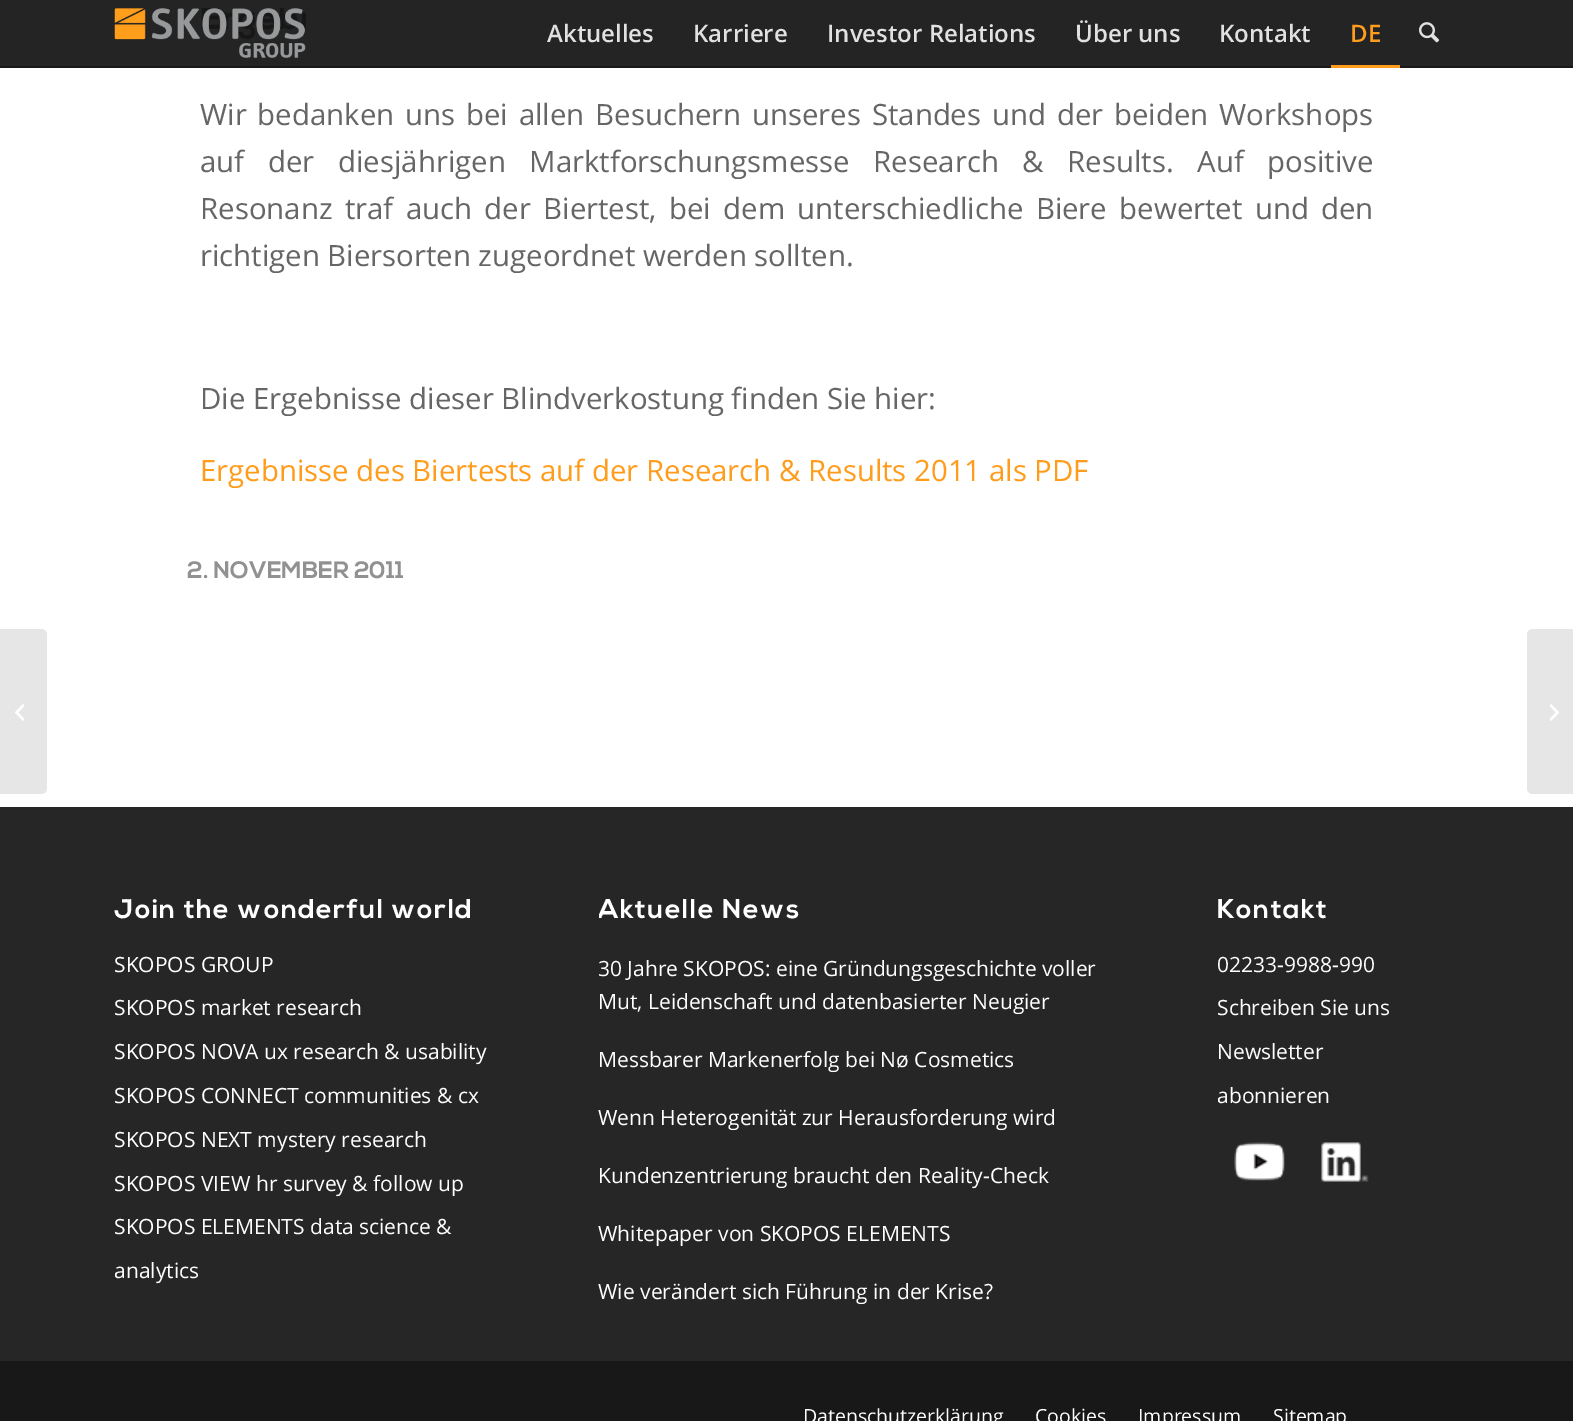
%!PS-Adobe-3.0
%%BoundingBox: 0 0 1573 1421
%%LanguageLevel: 3
%%Pages: 1
%%EndComments
%%BeginProlog
/setink { 3 { 255 div 3 1 roll } repeat setrgbcolor } def
/usefont { [ exch dup neg 0 0 3 -1 roll 0 0 ] selectfont } def
/drawtext { setink usefont moveto show } def
/fillbox { setink rectfill } def
/drawimage { 5 dict begin { /h /w /y /x /name } { exch def } forall
  gsave x y translate w h scale
  w h 8 [w 0 0 h 0 0] name (r) file false 3 colorimage grestore end } def
%%EndProlog
%%BeginSetup
<< /PageSize [1573 1421] >> setpagedevice
%%EndSetup
%%Page: 1 1
0 1421 translate 1 -1 scale
4 setmiterlimit
0 0 1573 1421 255 255 255 fillbox
0 66 1573 2 24 24 24 fillbox
0 0 1573 66 36 36 36 fillbox
(assets/img1.rgb) 114 8 192 50 drawimage
(Aktuelles) 547 42 /OpenSans-SemiBold 24 225 225 225 drawtext
(Karriere) 693 42 /OpenSans-SemiBold 24 225 225 225 drawtext
(Investor Relations) 827 42 /OpenSans-SemiBold 24 225 225 225 drawtext
(Über uns) 1075 42 /OpenSans-SemiBold 24 225 225 225 drawtext
(Kontakt) 1219 42 /OpenSans-SemiBold 24 225 225 225 drawtext
(DE) 1350 42 /OpenSans-SemiBold 24 255 156 27 drawtext
1331 65 69 3 255 156 27 fillbox
(assets/img2.rgb) 1419 22 21 21 drawimage
230 230 230 setink
0 629 moveto 41 629 lineto 44.5 629 47 631.5 47 635 curveto 47 788 lineto 47 791.5 44.5 794 41 794 curveto 0 794 lineto closepath fill
(assets/img3.rgb) 15 704 9 17 drawimage
/OpenSans-Regular 29.35 usefont
102 102 102 setink
200 125 moveto 3.25 0 32 (Wir bedanken uns bei allen Besuchern unseres Standes und der beiden Workshops) widthshow
200 172 moveto 16 0 32 (auf der diesjährigen Marktforschungsmesse Research & Results. Auf positive) widthshow
200 219 moveto 4.75 0 32 (Resonanz traf auch der Biertest, bei dem unterschiedliche Biere bewertet und den) widthshow
(richtigen Biersorten zugeordnet werden sollten.) 200 266 /OpenSans-Regular 29.35 102 102 102 drawtext
(Die Ergebnisse dieser Blindverkostung finden Sie hier:) 200 409 /OpenSans-Regular 29.35 102 102 102 drawtext
(Ergebnisse des Biertests auf der Research & Results 2011 als PDF) 200 481 /OpenSans-Regular 29.35 255 156 27 drawtext
(2. NOVEMBER 2011) 187 578 /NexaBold-Bold 23.75 145 145 145 drawtext
0 807 1573 554 38 38 38 fillbox
/NexaBold-Bold 27 usefont
255 255 255 setink
114 918 moveto 1.5 0 (Join the wonderful world) ashow
(SKOPOS GROUP) 114 972 /OpenSans-Regular 21 255 255 255 drawtext
(SKOPOS market research) 114 1015 /OpenSans-Regular 21 255 255 255 drawtext
(SKOPOS NOVA ux research & usability) 114 1059 /OpenSans-Regular 21 255 255 255 drawtext
(SKOPOS CONNECT communities & cx) 114 1103 /OpenSans-Regular 21 255 255 255 drawtext
(SKOPOS NEXT mystery research) 114 1147 /OpenSans-Regular 21 255 255 255 drawtext
(SKOPOS VIEW hr survey & follow up) 114 1191 /OpenSans-Regular 21 255 255 255 drawtext
(SKOPOS ELEMENTS data science &) 114 1234 /OpenSans-Regular 21 255 255 255 drawtext
(analytics) 114 1278 /OpenSans-Regular 21 255 255 255 drawtext
gsave
599 875 538 442 rectclip
/NexaBold-Bold 27 usefont
598 918 moveto 1.5 0 (Aktuelle News) ashow
grestore
(30 Jahre SKOPOS: eine Gründungsgeschichte voller) 598 976 /OpenSans-Regular 21 255 255 255 drawtext
(Mut, Leidenschaft und datenbasierter Neugier) 598 1009 /OpenSans-Regular 21 255 255 255 drawtext
(Messbarer Markenerfolg bei Nø Cosmetics) 598 1067 /OpenSans-Regular 21 255 255 255 drawtext
(Wenn Heterogenität zur Herausforderung wird) 598 1125 /OpenSans-Regular 21 255 255 255 drawtext
(Kundenzentrierung braucht den Reality-Check) 598 1183 /OpenSans-Regular 21 255 255 255 drawtext
(Whitepaper von SKOPOS ELEMENTS) 598 1241 /OpenSans-Regular 21 255 255 255 drawtext
(Wie verändert sich Führung in der Krise?) 598 1299 /OpenSans-Regular 21 255 255 255 drawtext
/NexaBold-Bold 27 usefont
1217 918 moveto 1.5 0 (Kontakt) ashow
(02233-9988-990) 1217 972 /OpenSans-Regular 21 255 255 255 drawtext
(Schreiben Sie uns) 1217 1015 /OpenSans-Regular 21 255 255 255 drawtext
(Newsletter) 1217 1059 /OpenSans-Regular 21 255 255 255 drawtext
(abonnieren) 1217 1103 /OpenSans-Regular 21 255 255 255 drawtext
(assets/img4.rgb) 1234 1142 51 39 drawimage
(assets/img5.rgb) 1321 1142 48 40 drawimage
0 1361 1573 60 24 24 24 fillbox
(Datenschutzerklärung) 803 1423 /OpenSans-Regular 19.5 255 255 255 drawtext
(Cookies) 1035 1423 /OpenSans-Regular 19.5 255 255 255 drawtext
(Impressum) 1138 1423 /OpenSans-Regular 19.5 255 255 255 drawtext
(Sitemap) 1273 1423 /OpenSans-Regular 19.5 255 255 255 drawtext
230 230 230 setink
1533 629 moveto 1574 629 lineto 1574 794 lineto 1533 794 lineto 1529.5 794 1527 791.5 1527 788 curveto 1527 635 lineto 1527 631.5 1529.5 629 1533 629 curveto closepath fill
(assets/img6.rgb) 1550 704 9 17 drawimage
showpage
%%EOF
